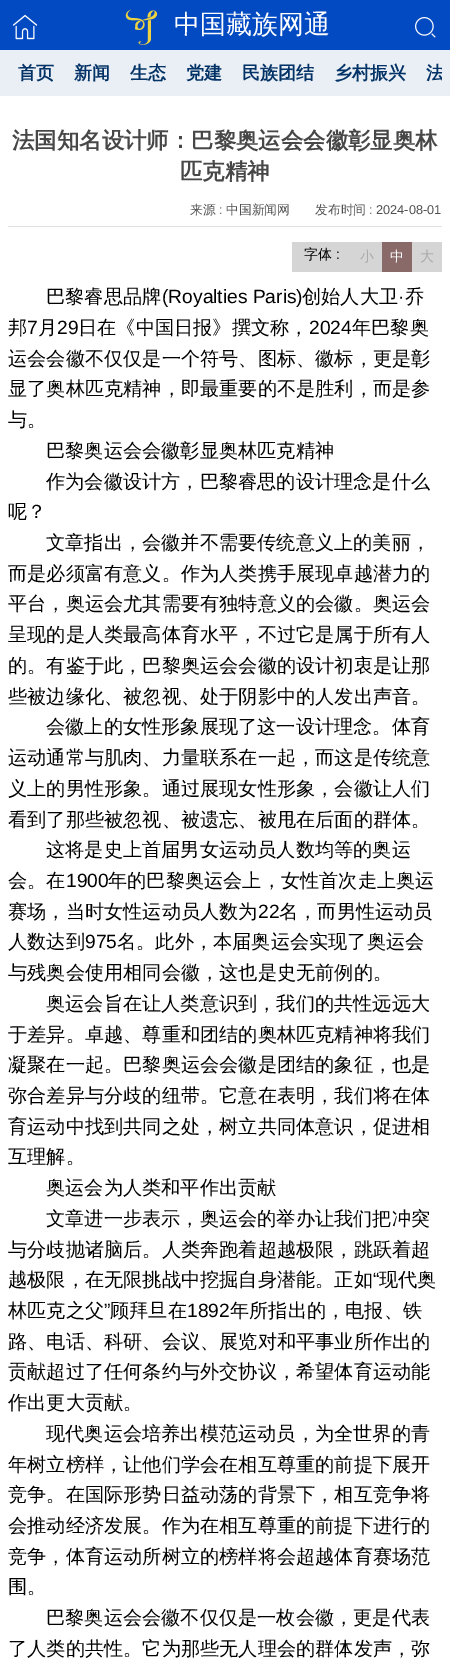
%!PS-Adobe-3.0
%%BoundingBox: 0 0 450 1673
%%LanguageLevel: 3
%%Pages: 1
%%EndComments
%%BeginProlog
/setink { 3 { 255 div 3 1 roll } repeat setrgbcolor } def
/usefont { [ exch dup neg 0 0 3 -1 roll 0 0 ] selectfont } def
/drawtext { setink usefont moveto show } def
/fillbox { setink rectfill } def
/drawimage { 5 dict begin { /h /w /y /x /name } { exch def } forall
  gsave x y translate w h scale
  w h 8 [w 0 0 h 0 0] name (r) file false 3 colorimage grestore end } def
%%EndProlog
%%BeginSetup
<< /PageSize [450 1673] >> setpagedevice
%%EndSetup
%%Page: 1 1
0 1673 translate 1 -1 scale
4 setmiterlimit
0 0 450 1673 255 255 255 fillbox
0 0 450 50 2 74 194 fillbox
(assets/img1.rgb) 12 14 26 26 drawimage
(assets/img2.rgb) 125 9 33 36 drawimage
(中国藏族网通) 174 33 /WenQuanYiZenHei-Medium 26 255 255 255 drawtext
(assets/img3.rgb) 415 17 21 21 drawimage
0 50 450 46 233 239 244 fillbox
(首页) 18 79 /WenQuanYiZenHei-Bold 18 3 50 102 drawtext
(新闻) 74 79 /WenQuanYiZenHei-Bold 18 3 50 102 drawtext
(生态) 130 79 /WenQuanYiZenHei-Bold 18 3 50 102 drawtext
(党建) 186 79 /WenQuanYiZenHei-Bold 18 3 50 102 drawtext
(民族团结) 242 79 /WenQuanYiZenHei-Bold 18 3 50 102 drawtext
(乡村振兴) 334 79 /WenQuanYiZenHei-Bold 18 3 50 102 drawtext
gsave
426 50 16 46 rectclip
(法) 426 79 /WenQuanYiZenHei-Bold 18 3 50 102 drawtext
grestore
(法国知名设计师：巴黎奥运会会徽彰显奥林) 12 148 /WenQuanYiZenHei-Bold 22.4 71 71 71 drawtext
(匹克精神) 180 179 /WenQuanYiZenHei-Bold 22.4 71 71 71 drawtext
(来源) 190 214 /WenQuanYiZenHei-Medium 12.75 79 79 79 drawtext
(:) 219 214 /LiberationSans-Regular 12.75 79 79 79 drawtext
(中国新闻网) 226 214 /WenQuanYiZenHei-Medium 12.75 79 79 79 drawtext
(发布时间) 315 214 /WenQuanYiZenHei-Medium 12.75 79 79 79 drawtext
(: 2024-08-01) 369 214 /LiberationSans-Regular 12.75 79 79 79 drawtext
8 226 434 1 226 226 226 fillbox
292 242 150 30 214 213 213 fillbox
(字体) 304 259 /WenQuanYiZenHei-Medium 14 0 0 0 drawtext
(:) 336 259 /LiberationSans-Regular 14 0 0 0 drawtext
(小) 360 261 /WenQuanYiZenHei-Medium 14 170 170 170 drawtext
382 242 30 30 138 105 105 fillbox
(中) 390 261 /WenQuanYiZenHei-Medium 14 255 255 255 drawtext
(大) 420 261 /WenQuanYiZenHei-Medium 14 170 170 170 drawtext
(巴黎睿思品牌) 46 303 /WenQuanYiZenHei-Medium 19.2 0 0 0 drawtext
(\(Royalties Paris\)) 162 303 /LiberationSans-Regular 19.2 0 0 0 drawtext
(创始人大卫) 302 303 /WenQuanYiZenHei-Medium 19.2 0 0 0 drawtext
(·) 398 303 /LiberationSans-Regular 19.2 0 0 0 drawtext
(乔) 405 303 /WenQuanYiZenHei-Medium 19.2 0 0 0 drawtext
(邦) 8 334 /WenQuanYiZenHei-Medium 19.2 0 0 0 drawtext
(7) 27 334 /LiberationSans-Regular 19.2 0 0 0 drawtext
(月) 38 334 /WenQuanYiZenHei-Medium 19.2 0 0 0 drawtext
(29) 57 334 /LiberationSans-Regular 19.2 0 0 0 drawtext
(日在《中国日报》撰文称，) 78 334 /WenQuanYiZenHei-Medium 19.2 0 0 0 drawtext
(2024) 309 334 /LiberationSans-Regular 19.2 0 0 0 drawtext
(年巴黎奥) 352 334 /WenQuanYiZenHei-Medium 19.2 0 0 0 drawtext
(运会会徽不仅仅是一个符号、图标、徽标，更是彰) 8 365 /WenQuanYiZenHei-Medium 19.2 0 0 0 drawtext
(显了奥林匹克精神，即最重要的不是胜利，而是参) 8 395 /WenQuanYiZenHei-Medium 19.2 0 0 0 drawtext
(与。) 8 426 /WenQuanYiZenHei-Medium 19.2 0 0 0 drawtext
(巴黎奥运会会徽彰显奥林匹克精神) 46 457 /WenQuanYiZenHei-Medium 19.2 0 0 0 drawtext
(作为会徽设计方，巴黎睿思的设计理念是什么) 46 488 /WenQuanYiZenHei-Medium 19.2 0 0 0 drawtext
(呢？) 8 518 /WenQuanYiZenHei-Medium 19.2 0 0 0 drawtext
(文章指出，会徽并不需要传统意义上的美丽，) 46 549 /WenQuanYiZenHei-Medium 19.2 0 0 0 drawtext
(而是必须富有意义。作为人类携手展现卓越潜力的) 8 580 /WenQuanYiZenHei-Medium 19.2 0 0 0 drawtext
(平台，奥运会尤其需要有独特意义的会徽。奥运会) 8 610 /WenQuanYiZenHei-Medium 19.2 0 0 0 drawtext
(呈现的是人类最高体育水平，不过它是属于所有人) 8 641 /WenQuanYiZenHei-Medium 19.2 0 0 0 drawtext
(的。有鉴于此，巴黎奥运会会徽的设计初衷是让那) 8 672 /WenQuanYiZenHei-Medium 19.2 0 0 0 drawtext
(些被边缘化、被忽视、处于阴影中的人发出声音。) 8 703 /WenQuanYiZenHei-Medium 19.2 0 0 0 drawtext
(会徽上的女性形象展现了这一设计理念。体育) 46 733 /WenQuanYiZenHei-Medium 19.2 0 0 0 drawtext
(运动通常与肌肉、力量联系在一起，而这是传统意) 8 764 /WenQuanYiZenHei-Medium 19.2 0 0 0 drawtext
(义上的男性形象。通过展现女性形象，会徽让人们) 8 795 /WenQuanYiZenHei-Medium 19.2 0 0 0 drawtext
(看到了那些被忽视、被遗忘、被甩在后面的群体。) 8 826 /WenQuanYiZenHei-Medium 19.2 0 0 0 drawtext
(这将是史上首届男女运动员人数均等的奥运) 46 856 /WenQuanYiZenHei-Medium 19.2 0 0 0 drawtext
(会。在) 8 887 /WenQuanYiZenHei-Medium 19.2 0 0 0 drawtext
(1900) 66 887 /LiberationSans-Regular 19.2 0 0 0 drawtext
(年的巴黎奥运会上，女性首次走上奥运) 108 887 /WenQuanYiZenHei-Medium 19.2 0 0 0 drawtext
(赛场，当时女性运动员人数为) 8 918 /WenQuanYiZenHei-Medium 19.2 0 0 0 drawtext
(22) 258 918 /LiberationSans-Regular 19.2 0 0 0 drawtext
(名，而男性运动员) 279 918 /WenQuanYiZenHei-Medium 19.2 0 0 0 drawtext
(人数达到) 8 948 /WenQuanYiZenHei-Medium 19.2 0 0 0 drawtext
(975) 85 948 /LiberationSans-Regular 19.2 0 0 0 drawtext
(名。此外，本届奥运会实现了奥运会) 117 948 /WenQuanYiZenHei-Medium 19.2 0 0 0 drawtext
(与残奥会使用相同会徽，这也是史无前例的。) 8 979 /WenQuanYiZenHei-Medium 19.2 0 0 0 drawtext
(奥运会旨在让人类意识到，我们的共性远远大) 46 1010 /WenQuanYiZenHei-Medium 19.2 0 0 0 drawtext
(于差异。卓越、尊重和团结的奥林匹克精神将我们) 8 1041 /WenQuanYiZenHei-Medium 19.2 0 0 0 drawtext
(凝聚在一起。巴黎奥运会会徽是团结的象征，也是) 8 1071 /WenQuanYiZenHei-Medium 19.2 0 0 0 drawtext
(弥合差异与分歧的纽带。它意在表明，我们将在体) 8 1102 /WenQuanYiZenHei-Medium 19.2 0 0 0 drawtext
(育运动中找到共同之处，树立共同体意识，促进相) 8 1133 /WenQuanYiZenHei-Medium 19.2 0 0 0 drawtext
(互理解。) 8 1163 /WenQuanYiZenHei-Medium 19.2 0 0 0 drawtext
(奥运会为人类和平作出贡献) 46 1194 /WenQuanYiZenHei-Medium 19.2 0 0 0 drawtext
(文章进一步表示，奥运会的举办让我们把冲突) 46 1225 /WenQuanYiZenHei-Medium 19.2 0 0 0 drawtext
(与分歧抛诸脑后。人类奔跑着超越极限，跳跃着超) 8 1256 /WenQuanYiZenHei-Medium 19.2 0 0 0 drawtext
(越极限，在无限挑战中挖掘自身潜能。正如) 8 1286 /WenQuanYiZenHei-Medium 19.2 0 0 0 drawtext
(“) 373 1286 /LiberationSans-Regular 19.2 0 0 0 drawtext
(现代奥) 379 1286 /WenQuanYiZenHei-Medium 19.2 0 0 0 drawtext
(林匹克之父) 8 1317 /WenQuanYiZenHei-Medium 19.2 0 0 0 drawtext
(”) 104 1317 /LiberationSans-Regular 19.2 0 0 0 drawtext
(顾拜旦在) 110 1317 /WenQuanYiZenHei-Medium 19.2 0 0 0 drawtext
(1892) 187 1317 /LiberationSans-Regular 19.2 0 0 0 drawtext
(年所指出的，电报、铁) 230 1317 /WenQuanYiZenHei-Medium 19.2 0 0 0 drawtext
(路、电话、科研、会议、展览对和平事业所作出的) 8 1348 /WenQuanYiZenHei-Medium 19.2 0 0 0 drawtext
(贡献超过了任何条约与外交协议，希望体育运动能) 8 1378 /WenQuanYiZenHei-Medium 19.2 0 0 0 drawtext
(作出更大贡献。) 8 1409 /WenQuanYiZenHei-Medium 19.2 0 0 0 drawtext
(现代奥运会培养出模范运动员，为全世界的青) 46 1440 /WenQuanYiZenHei-Medium 19.2 0 0 0 drawtext
(年树立榜样，让他们学会在相互尊重的前提下展开) 8 1471 /WenQuanYiZenHei-Medium 19.2 0 0 0 drawtext
(竞争。在国际形势日益动荡的背景下，相互竞争将) 8 1501 /WenQuanYiZenHei-Medium 19.2 0 0 0 drawtext
(会推动经济发展。作为在相互尊重的前提下进行的) 8 1532 /WenQuanYiZenHei-Medium 19.2 0 0 0 drawtext
(竞争，体育运动所树立的榜样将会超越体育赛场范) 8 1563 /WenQuanYiZenHei-Medium 19.2 0 0 0 drawtext
(围。) 8 1593 /WenQuanYiZenHei-Medium 19.2 0 0 0 drawtext
(巴黎奥运会会徽不仅仅是一枚会徽，更是代表) 46 1624 /WenQuanYiZenHei-Medium 19.2 0 0 0 drawtext
(了人类的共性。它为那些无人理会的群体发声，弥) 8 1655 /WenQuanYiZenHei-Medium 19.2 0 0 0 drawtext
showpage
%%EOF
